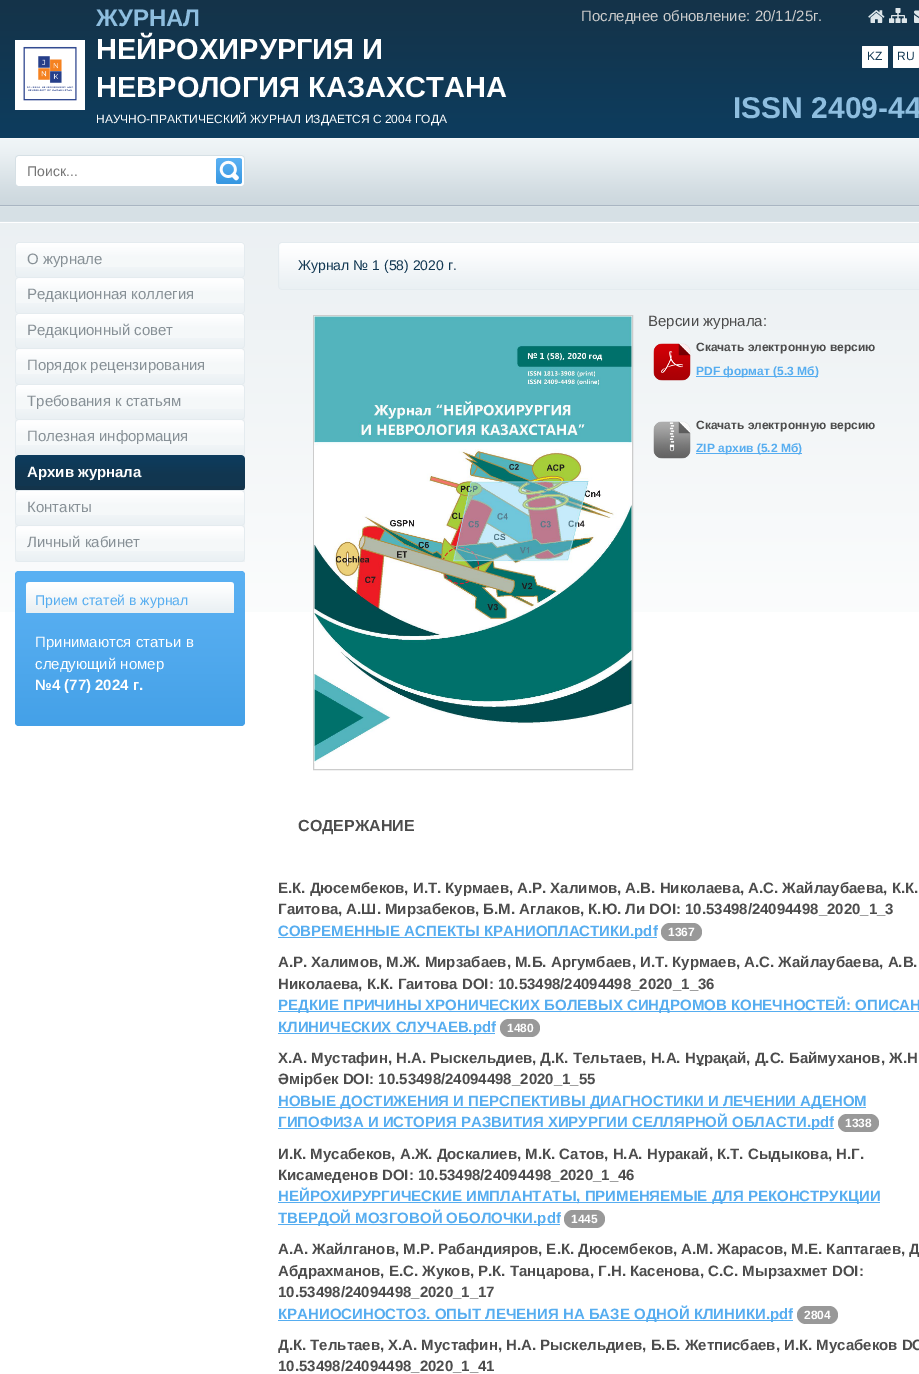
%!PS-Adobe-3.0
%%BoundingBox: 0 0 919 1374
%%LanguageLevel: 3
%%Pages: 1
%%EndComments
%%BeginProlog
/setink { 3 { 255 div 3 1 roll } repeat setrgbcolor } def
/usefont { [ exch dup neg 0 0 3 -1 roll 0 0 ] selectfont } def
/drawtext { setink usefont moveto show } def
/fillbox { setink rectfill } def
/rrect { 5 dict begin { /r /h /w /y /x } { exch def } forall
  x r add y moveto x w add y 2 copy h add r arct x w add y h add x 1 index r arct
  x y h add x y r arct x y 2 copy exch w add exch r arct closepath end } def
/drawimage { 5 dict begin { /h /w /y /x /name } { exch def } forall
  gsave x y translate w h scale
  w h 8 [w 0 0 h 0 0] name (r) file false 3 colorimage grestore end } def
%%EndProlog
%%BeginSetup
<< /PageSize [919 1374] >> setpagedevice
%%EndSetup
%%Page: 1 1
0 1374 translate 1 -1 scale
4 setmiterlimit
0 0 919 1374 255 255 255 fillbox
(assets/img1.rgb) 0 0 919 612 drawimage
(assets/img2.rgb) 15 40 70 70 drawimage
(ЖУРНАЛ) 96 26 /LiberationSans-Bold 24 142 190 223 drawtext
(НЕЙРОХИРУРГИЯ И) 96 59 /LiberationSans-Bold 29 255 255 255 drawtext
(НЕВРОЛОГИЯ КАЗАХСТАНА) 96 97 /LiberationSans-Bold 29 255 255 255 drawtext
(НАУЧНО-ПРАКТИЧЕСКИЙ ЖУРНАЛ ИЗДАЕТСЯ С 2004 ГОДА) 96 123 /LiberationSans-Regular 12 255 255 255 drawtext
(Последнее обновление: 20/11/25г.) 581 21 /LiberationSans-Regular 15 204 204 204 drawtext
(assets/img3.rgb) 868 10 17 13 drawimage
(assets/img4.rgb) 889 8 18 15 drawimage
(assets/img5.rgb) 914 10 5 13 drawimage
255 255 255 setink
862 46 26 22 1 rrect fill
(KZ) 867 60 /LiberationSans-Regular 12 17 55 82 drawtext
255 255 255 setink
893 46 26 22 1 rrect fill
(RU) 897 60 /LiberationSans-Regular 12 17 55 82 drawtext
(ISSN 2409-44) 733 118 /LiberationSans-Bold 30 142 190 223 drawtext
(assets/img6.rgb) 15 155 230 31 drawimage
(Поиск...) 27 176 /LiberationSans-Regular 14 117 117 117 drawtext
(assets/img7.rgb) 216 158 26 26 drawimage
(assets/img8.rgb) 15 242 230 25 drawimage
(assets/img9.rgb) 15 267 230 11 drawimage
(О журнале) 27 264 /LiberationSans-Regular 15 135 144 150 drawtext
(assets/img10.rgb) 15 278 230 25 drawimage
(assets/img9.rgb) 15 303 230 11 drawimage
(Редакционная коллегия) 27 299 /LiberationSans-Regular 15 135 144 150 drawtext
(assets/img11.rgb) 15 314 230 24 drawimage
(assets/img9.rgb) 15 338 230 11 drawimage
(Редакционный совет) 27 335 /LiberationSans-Regular 15 135 144 150 drawtext
(assets/img10.rgb) 15 349 230 25 drawimage
(assets/img9.rgb) 15 374 230 11 drawimage
(Порядок рецензирования) 27 370 /LiberationSans-Regular 15 135 144 150 drawtext
(assets/img11.rgb) 15 385 230 24 drawimage
(assets/img9.rgb) 15 409 230 11 drawimage
(Требования к статьям) 27 406 /LiberationSans-Regular 15 135 144 150 drawtext
(assets/img10.rgb) 15 420 230 25 drawimage
(assets/img12.rgb) 15 445 230 10 drawimage
(Полезная информация) 27 441 /LiberationSans-Regular 15 135 144 150 drawtext
(assets/img13.rgb) 15 455 230 31 drawimage
(assets/img14.rgb) 15 486 230 4 drawimage
(Архив журнала) 27 477 /LiberationSans-Bold 15 255 255 255 drawtext
(assets/img8.rgb) 15 490 230 25 drawimage
(assets/img9.rgb) 15 515 230 11 drawimage
(Контакты) 27 512 /LiberationSans-Regular 15 135 144 150 drawtext
(assets/img10.rgb) 15 526 230 25 drawimage
(assets/img9.rgb) 15 551 230 11 drawimage
(Личный кабинет) 27 547 /LiberationSans-Regular 15 135 144 150 drawtext
(assets/img15.rgb) 15 571 230 155 drawimage
(assets/img16.rgb) 26 582 208 31 drawimage
(Прием статей в журнал) 35 605 /LiberationSans-Regular 14 86 173 240 drawtext
(Принимаются статьи в) 35 647 /LiberationSans-Regular 15 255 255 255 drawtext
(следующий номер) 35 669 /LiberationSans-Regular 15 255 255 255 drawtext
(№4 \(77\) 2024 г.) 35 690 /LiberationSans-Bold 15 255 255 255 drawtext
(assets/img17.rgb) 278 242 21 48 drawimage
(assets/img18.rgb) 299 242 620 48 drawimage
(Журнал № 1 \(58\) 2020 г.) 298 270 /LiberationSans-Regular 14 17 55 82 drawtext
204 204 204 setink
313.5 315.5 319 454 rectstroke
(assets/img19.rgb) 314 316 318 447 drawimage
(Версии журнала:) 648 326 /LiberationSans-Regular 15 76 76 76 drawtext
(assets/img20.rgb) 653 343 38 38 drawimage
(Скачать электронную версию) 696 351 /LiberationSans-Bold 12 76 76 76 drawtext
696 376 122 1 86 173 240 fillbox
(PDF формат \(5.3 Мб\)) 696 375 /LiberationSans-Bold 12 86 173 240 drawtext
(assets/img21.rgb) 653 421 38 38 drawimage
(Скачать электронную версию) 696 429 /LiberationSans-Bold 12 76 76 76 drawtext
696 453 106 1 86 173 240 fillbox
(ZIP архив \(5.2 Мб\)) 696 452 /LiberationSans-Bold 12 86 173 240 drawtext
(СОДЕРЖАНИЕ) 298 831 /LiberationSans-Bold 16 76 76 76 drawtext
(Е.К. Дюсембеков, И.Т. Курмаев, А.Р. Халимов, А.В. Николаева, А.С. Жайлаубаева, К.К.) 278 893 /LiberationSans-Bold 15 76 76 76 drawtext
(Гаитова, А.Ш. Мирзабеков, Б.М. Аглаков, К.Ю. Ли DOI: 10.53498/24094498_2020_1_3) 278 914 /LiberationSans-Bold 15 76 76 76 drawtext
278 937 379 1 86 173 240 fillbox
(СОВРЕМЕННЫЕ АСПЕКТЫ КРАНИОПЛАСТИКИ.pdf) 278 936 /LiberationSans-Bold 15 86 173 240 drawtext
153 153 153 setink
661 923 41 18 9 rrect fill
(1367) 668 936 /LiberationSans-Bold 12 255 255 255 drawtext
(А.Р. Халимов, М.Ж. Мирзабаев, М.Б. Аргумбаев, И.Т. Курмаев, А.С. Жайлаубаева, А.В.) 278 967 /LiberationSans-Bold 15 76 76 76 drawtext
(Николаева, К.К. Гаитова DOI: 10.53498/24094498_2020_1_36) 278 989 /LiberationSans-Bold 15 76 76 76 drawtext
278 1011 641 1 86 173 240 fillbox
(РЕДКИЕ ПРИЧИНЫ ХРОНИЧЕСКИХ БОЛЕВЫХ СИНДРОМОВ КОНЕЧНОСТЕЙ: ОПИСАН) 278 1010 /LiberationSans-Bold 15 86 173 240 drawtext
278 1033 217 1 86 173 240 fillbox
(КЛИНИЧЕСКИХ СЛУЧАЕВ.pdf) 278 1032 /LiberationSans-Bold 15 86 173 240 drawtext
153 153 153 setink
500 1019 40 18 9 rrect fill
(1480) 507 1032 /LiberationSans-Bold 12 255 255 255 drawtext
(Х.А. Мустафин, Н.А. Рыскельдиев, Д.К. Тельтаев, Н.А. Нұрақай, Д.С. Баймуханов, Ж.Н) 278 1063 /LiberationSans-Bold 15 76 76 76 drawtext
(Әмірбек DOI: 10.53498/24094498_2020_1_55) 278 1084 /LiberationSans-Bold 15 76 76 76 drawtext
278 1107 588 1 86 173 240 fillbox
(НОВЫЕ ДОСТИЖЕНИЯ И ПЕРСПЕКТИВЫ ДИАГНОСТИКИ И ЛЕЧЕНИИ АДЕНОМ) 278 1106 /LiberationSans-Bold 15 86 173 240 drawtext
278 1128 556 1 86 173 240 fillbox
(ГИПОФИЗА И ИСТОРИЯ РАЗВИТИЯ ХИРУРГИИ СЕЛЛЯРНОЙ ОБЛАСТИ.pdf) 278 1127 /LiberationSans-Bold 15 86 173 240 drawtext
153 153 153 setink
838 1114 41 18 9 rrect fill
(1338) 845 1127 /LiberationSans-Bold 12 255 255 255 drawtext
(И.К. Мусабеков, А.Ж. Доскалиев, М.К. Сатов, Н.А. Нуракай, К.Т. Сыдыкова, Н.Г.) 278 1159 /LiberationSans-Bold 15 76 76 76 drawtext
(Кисамеденов DOI: 10.53498/24094498_2020_1_46) 278 1180 /LiberationSans-Bold 15 76 76 76 drawtext
278 1202 602 1 86 173 240 fillbox
(НЕЙРОХИРУРГИЧЕСКИЕ ИМПЛАНТАТЫ, ПРИМЕНЯЕМЫЕ ДЛЯ РЕКОНСТРУКЦИИ) 278 1201 /LiberationSans-Bold 15 86 173 240 drawtext
278 1224 282 1 86 173 240 fillbox
(ТВЕРДОЙ МОЗГОВОЙ ОБОЛОЧКИ.pdf) 278 1223 /LiberationSans-Bold 15 86 173 240 drawtext
153 153 153 setink
564 1210 41 18 9 rrect fill
(1445) 571 1223 /LiberationSans-Bold 12 255 255 255 drawtext
(А.А. Жайлганов, М.Р. Рабандияров, Е.К. Дюсембеков, А.М. Жарасов, М.Е. Каптагаев, Д) 278 1254 /LiberationSans-Bold 15 76 76 76 drawtext
(Абдрахманов, Е.С. Жуков, Р.К. Танцарова, Г.Н. Касенова, С.С. Мырзахмет DOI:) 278 1276 /LiberationSans-Bold 15 76 76 76 drawtext
(10.53498/24094498_2020_1_17) 278 1297 /LiberationSans-Bold 15 76 76 76 drawtext
278 1320 515 1 86 173 240 fillbox
(КРАНИОСИНОСТОЗ. ОПЫТ ЛЕЧЕНИЯ НА БАЗЕ ОДНОЙ КЛИНИКИ.pdf) 278 1319 /LiberationSans-Bold 15 86 173 240 drawtext
153 153 153 setink
797 1306 41 18 9 rrect fill
(2804) 804 1319 /LiberationSans-Bold 12 255 255 255 drawtext
(Д.К. Тельтаев, Х.А. Мустафин, Н.А. Рыскельдиев, Б.Б. Жетписбаев, И.К. Мусабеков DO) 278 1350 /LiberationSans-Bold 15 76 76 76 drawtext
(10.53498/24094498_2020_1_41) 278 1371 /LiberationSans-Bold 15 76 76 76 drawtext
showpage
%%EOF
